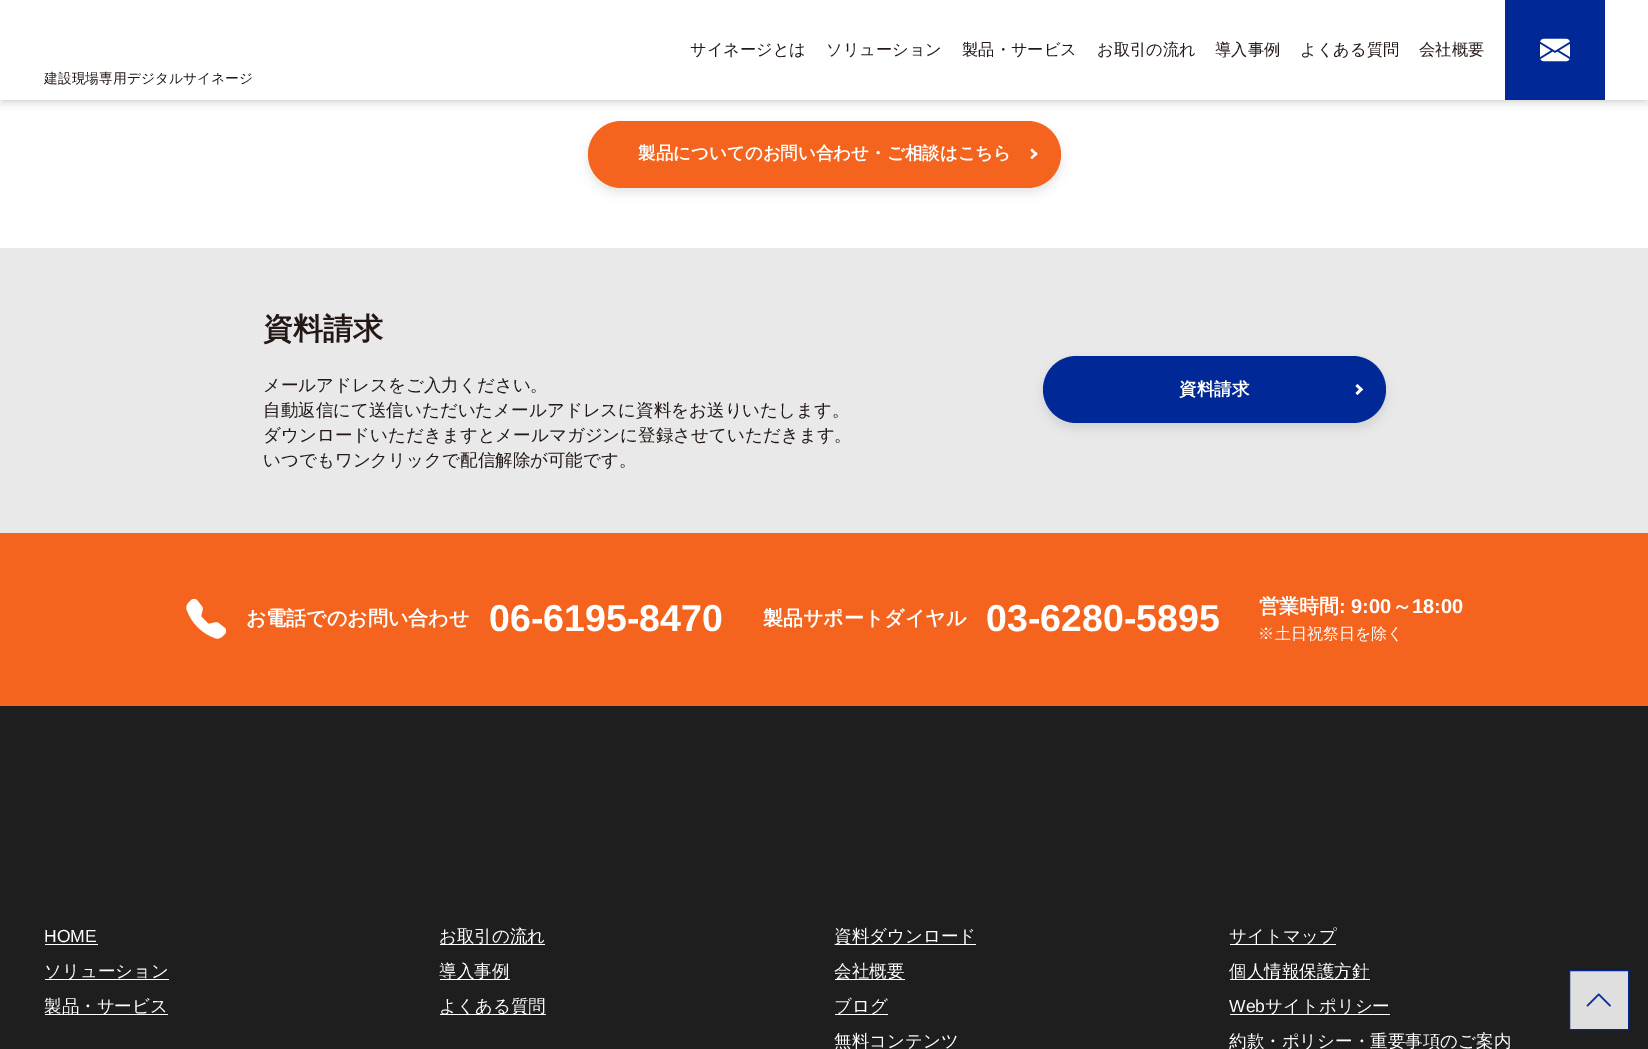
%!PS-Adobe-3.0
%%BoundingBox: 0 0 1648 1049
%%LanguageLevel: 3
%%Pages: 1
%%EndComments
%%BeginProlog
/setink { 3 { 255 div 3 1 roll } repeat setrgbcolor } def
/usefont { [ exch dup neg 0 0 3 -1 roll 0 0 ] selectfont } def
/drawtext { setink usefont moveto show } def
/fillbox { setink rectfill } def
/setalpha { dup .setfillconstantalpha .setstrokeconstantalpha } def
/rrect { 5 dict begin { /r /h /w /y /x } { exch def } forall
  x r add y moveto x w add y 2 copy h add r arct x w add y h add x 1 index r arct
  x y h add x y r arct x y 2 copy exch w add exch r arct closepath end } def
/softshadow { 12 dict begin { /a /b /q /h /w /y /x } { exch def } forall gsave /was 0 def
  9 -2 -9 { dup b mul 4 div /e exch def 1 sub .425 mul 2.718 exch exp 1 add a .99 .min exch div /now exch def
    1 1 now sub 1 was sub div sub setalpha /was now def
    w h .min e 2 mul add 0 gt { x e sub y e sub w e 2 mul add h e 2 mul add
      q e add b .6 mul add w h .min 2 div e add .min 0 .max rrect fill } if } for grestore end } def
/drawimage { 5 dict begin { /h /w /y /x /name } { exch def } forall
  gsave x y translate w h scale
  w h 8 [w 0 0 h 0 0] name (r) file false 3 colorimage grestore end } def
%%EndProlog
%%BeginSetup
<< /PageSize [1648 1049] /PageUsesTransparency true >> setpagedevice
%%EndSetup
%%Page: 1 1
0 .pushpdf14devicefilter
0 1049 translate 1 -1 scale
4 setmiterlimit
0 0 1648 1049 255 255 255 fillbox
0 0 0 setink
3 5 1643 95 0 2.5 0.1 softshadow
1 6 1647 98 0 4 0.1 softshadow
0 0 1648 100 255 255 255 fillbox
(サイネージとは) 690 55 /WenQuanYiZenHei-Medium 16.25 35 24 21 drawtext
(ソリューション) 826 55 /WenQuanYiZenHei-Medium 16.25 35 24 21 drawtext
(製品・サービス) 962 55 /WenQuanYiZenHei-Medium 16.25 35 24 21 drawtext
(お取引の流れ) 1097 55 /WenQuanYiZenHei-Medium 16.25 35 24 21 drawtext
(導入事例) 1215 55 /WenQuanYiZenHei-Medium 16.25 35 24 21 drawtext
(よくある質問) 1300 55 /WenQuanYiZenHei-Medium 16.25 35 24 21 drawtext
(会社概要) 1419 55 /WenQuanYiZenHei-Medium 16.25 35 24 21 drawtext
1505 0 100 100 0 40 150 fillbox
(assets/img1.rgb) 1540 38 30 24 drawimage
(建設現場専用デジタルサイネージ) 44 83 /WenQuanYiZenHei-Medium 13.75 35 24 21 drawtext
0 0 0 setink
588 126 473 67 33.5 5 0.1 softshadow
245 100 30 setink
588 121 473 67 33.5 rrect fill
(製品についてのお問い合わせ・ご相談はこちら) 638 159 /WenQuanYiZenHei-Bold 17.5 255 255 255 drawtext
1032 148.5 moveto 1037.5 154 lineto 1036 155.5 lineto 1030.5 150.5 lineto closepath fill
1036 152 moveto 1037.5 154 lineto 1032 159 lineto 1030.5 157.5 lineto closepath fill
0 248 1648 285 233 233 233 fillbox
(資料請求) 263 339 /WenQuanYiZenHei-Bold 30 35 24 21 drawtext
(メールアドレスをご入力ください。) 263 391 /WenQuanYiZenHei-Medium 17.5 35 24 21 drawtext
(自動返信にて送信いただいたメールアドレスに資料をお送りいたします。) 263 416 /WenQuanYiZenHei-Medium 17.5 35 24 21 drawtext
(ダウンロードいただきますとメールマガジンに登録させていただきます。) 263 441 /WenQuanYiZenHei-Medium 17.5 35 24 21 drawtext
(いつでもワンクリックで配信解除が可能です。) 263 466 /WenQuanYiZenHei-Medium 17.5 35 24 21 drawtext
0 0 0 setink
1043 361 343 67 33.5 5 0.1 softshadow
0 40 150 setink
1043 356 343 67 33.5 rrect fill
(資料請求) 1179 395 /WenQuanYiZenHei-Bold 17.5 255 255 255 drawtext
1357.5 384 moveto 1363 389.5 lineto 1361 391 lineto 1355.5 386 lineto closepath fill
1361 387.5 moveto 1363 389.5 lineto 1357.5 395 lineto 1355.5 393 lineto closepath fill
0 533 1648 173 245 100 30 fillbox
(assets/img2.rgb) 186 599 40 40 drawimage
(お電話でのお問い合わせ) 246 625 /WenQuanYiZenHei-Bold 20 255 255 255 drawtext
(06-6195-8470) 489 631 /LiberationSans-Bold 37.5 255 255 255 drawtext
(製品サポートダイヤル) 763 625 /WenQuanYiZenHei-Bold 20 255 255 255 drawtext
(03-6280-5895) 986 631 /LiberationSans-Bold 37.5 255 255 255 drawtext
(営業時間) 1259 613 /WenQuanYiZenHei-Bold 20 255 255 255 drawtext
(: 9:00) 1339 613 /LiberationSans-Bold 20 255 255 255 drawtext
(～) 1392 613 /WenQuanYiZenHei-Bold 20 255 255 255 drawtext
(18:00) 1412 613 /LiberationSans-Bold 20 255 255 255 drawtext
(※) 1258 639 /WenQuanYiZenHei-Medium 16 255 255 255 drawtext
(土日祝祭日を除く) 1275 639 /WenQuanYiZenHei-Medium 16 255 255 255 drawtext
0 706 1648 343 30 30 30 fillbox
(HOME) 44 942 /LiberationSans-Regular 17.5 255 255 255 drawtext
45 944 53 1 255 255 255 fillbox
45 979 124 1 255 255 255 fillbox
(ソリューション) 44 977 /WenQuanYiZenHei-Medium 17.5 255 255 255 drawtext
45 1014 123 1 255 255 255 fillbox
(製品・サービス) 44 1012 /WenQuanYiZenHei-Medium 17.5 255 255 255 drawtext
440 944 105 1 255 255 255 fillbox
(お取引の流れ) 439 942 /WenQuanYiZenHei-Medium 17.5 255 255 255 drawtext
440 979 70 1 255 255 255 fillbox
(導入事例) 439 977 /WenQuanYiZenHei-Medium 17.5 255 255 255 drawtext
440 1014 106 1 255 255 255 fillbox
(よくある質問) 439 1012 /WenQuanYiZenHei-Medium 17.5 255 255 255 drawtext
835 944 141 1 255 255 255 fillbox
(資料ダウンロード) 834 942 /WenQuanYiZenHei-Medium 17.5 255 255 255 drawtext
835 979 70 1 255 255 255 fillbox
(会社概要) 834 977 /WenQuanYiZenHei-Medium 17.5 255 255 255 drawtext
835 1014 53 1 255 255 255 fillbox
(ブログ) 834 1012 /WenQuanYiZenHei-Medium 17.5 255 255 255 drawtext
(無料コンテンツ) 834 1047 /WenQuanYiZenHei-Medium 17.5 255 255 255 drawtext
1230 944 106 1 255 255 255 fillbox
(サイトマップ) 1229 942 /WenQuanYiZenHei-Medium 17.5 255 255 255 drawtext
1230 979 140 1 255 255 255 fillbox
(個人情報保護方針) 1229 977 /WenQuanYiZenHei-Medium 17.5 255 255 255 drawtext
(Web) 1229 1012 /LiberationSans-Regular 17.5 255 255 255 drawtext
1230 1014 160 1 255 255 255 fillbox
(サイトポリシー) 1265 1012 /WenQuanYiZenHei-Medium 17.5 255 255 255 drawtext
(約款・ポリシー・重要事項のご案内) 1229 1047 /WenQuanYiZenHei-Medium 17.5 255 255 255 drawtext
223 223 223 setink
1569.5 970.5 moveto 1628.5 970.5 lineto 1628.5 1029.5 lineto 1569.5 1029.5 lineto closepath gsave fill grestore
2 40 144 setink
stroke
(assets/img3.rgb) 1586 993 25 14 drawimage
.poppdf14devicefilter showpage
%%EOF
